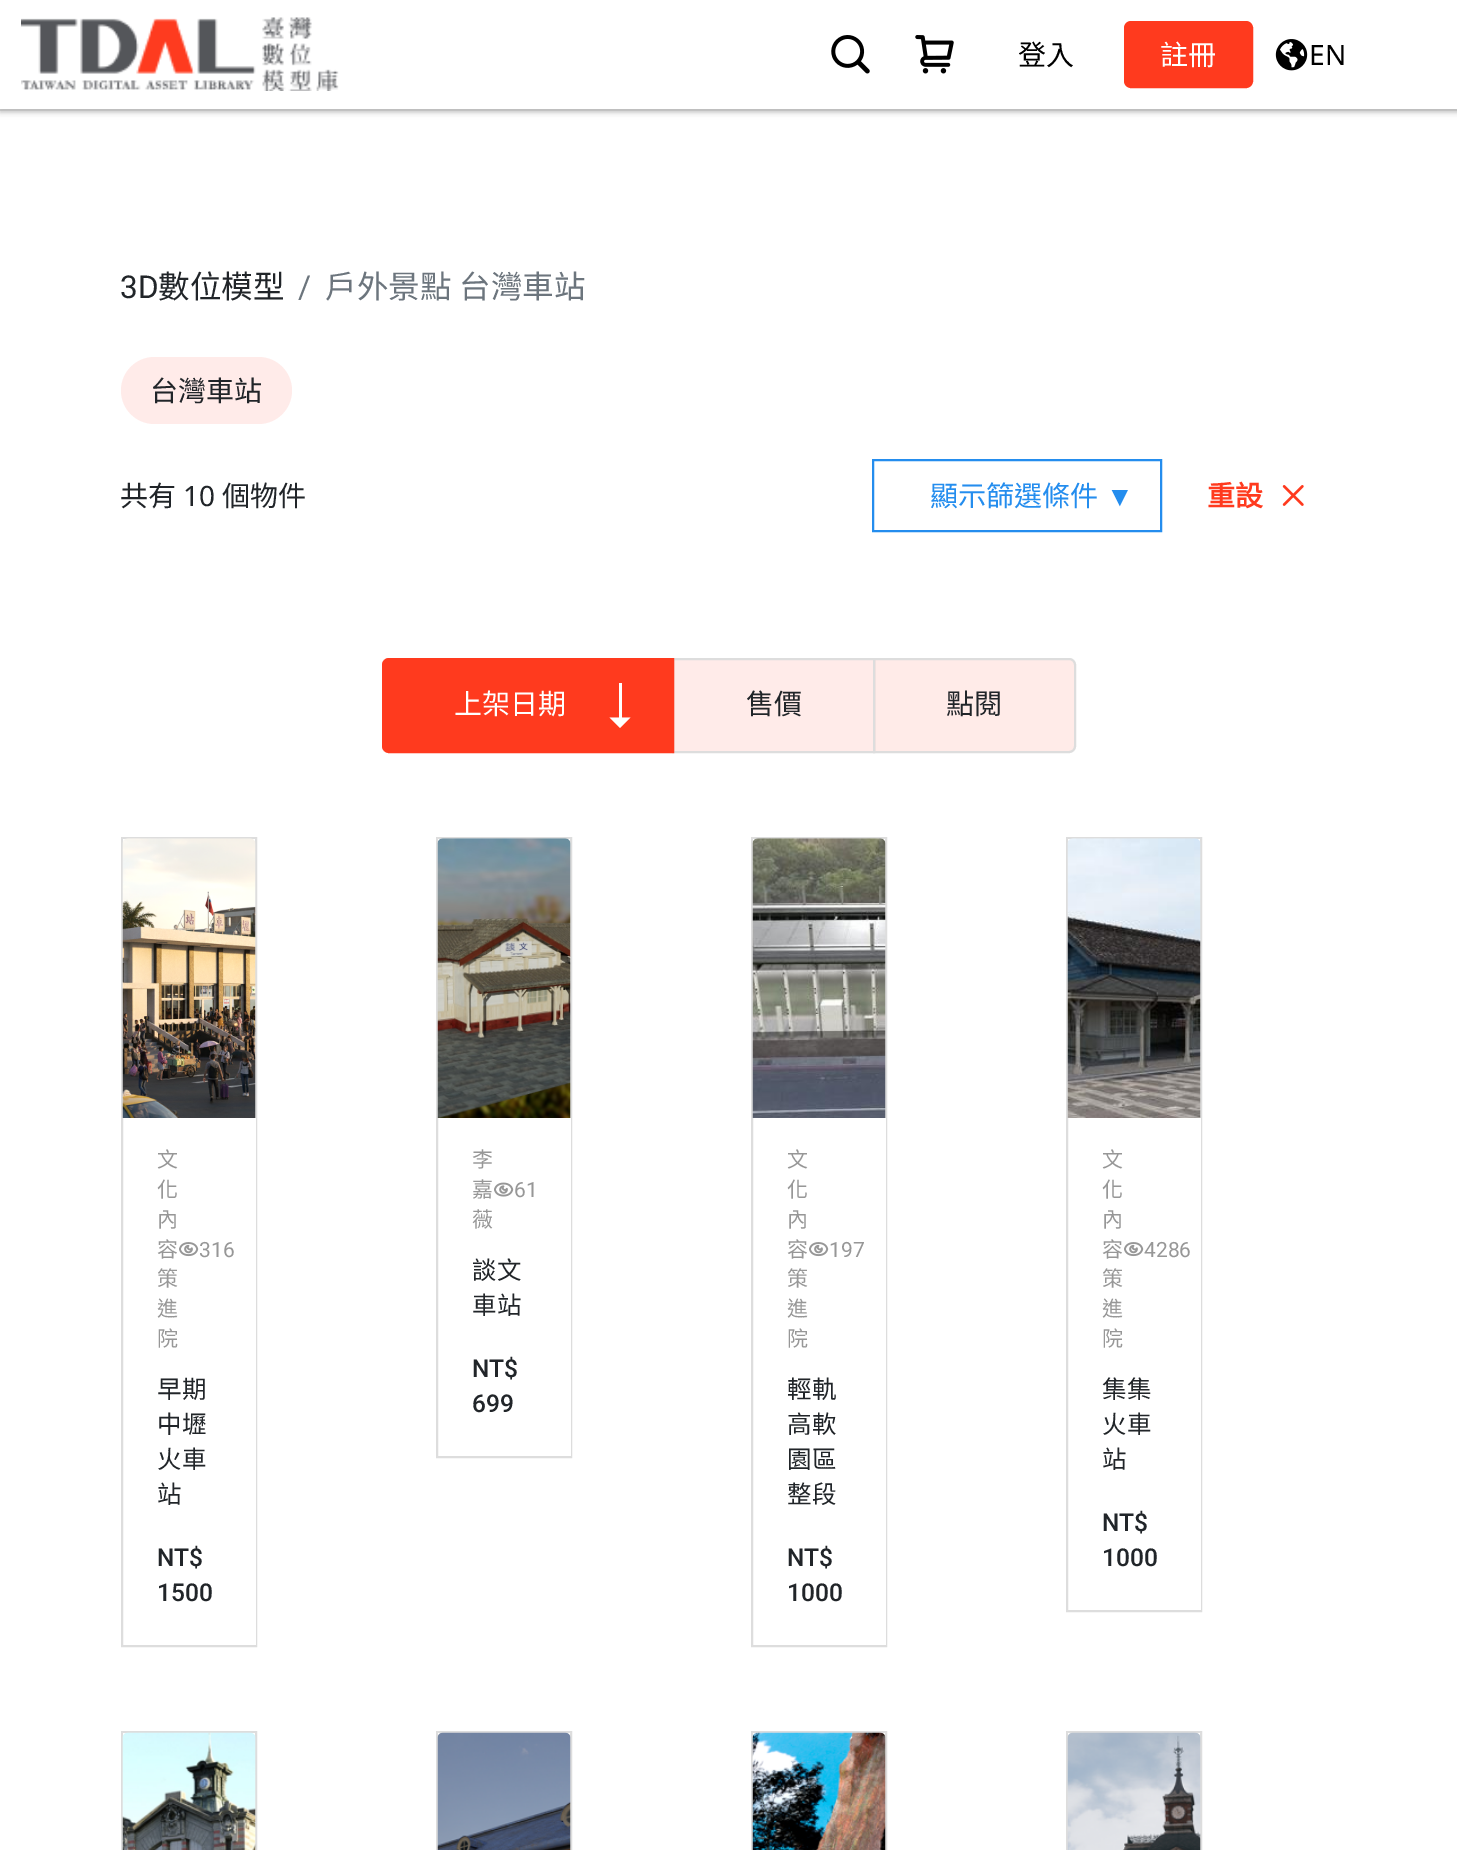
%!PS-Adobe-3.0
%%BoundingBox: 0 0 1457 1850
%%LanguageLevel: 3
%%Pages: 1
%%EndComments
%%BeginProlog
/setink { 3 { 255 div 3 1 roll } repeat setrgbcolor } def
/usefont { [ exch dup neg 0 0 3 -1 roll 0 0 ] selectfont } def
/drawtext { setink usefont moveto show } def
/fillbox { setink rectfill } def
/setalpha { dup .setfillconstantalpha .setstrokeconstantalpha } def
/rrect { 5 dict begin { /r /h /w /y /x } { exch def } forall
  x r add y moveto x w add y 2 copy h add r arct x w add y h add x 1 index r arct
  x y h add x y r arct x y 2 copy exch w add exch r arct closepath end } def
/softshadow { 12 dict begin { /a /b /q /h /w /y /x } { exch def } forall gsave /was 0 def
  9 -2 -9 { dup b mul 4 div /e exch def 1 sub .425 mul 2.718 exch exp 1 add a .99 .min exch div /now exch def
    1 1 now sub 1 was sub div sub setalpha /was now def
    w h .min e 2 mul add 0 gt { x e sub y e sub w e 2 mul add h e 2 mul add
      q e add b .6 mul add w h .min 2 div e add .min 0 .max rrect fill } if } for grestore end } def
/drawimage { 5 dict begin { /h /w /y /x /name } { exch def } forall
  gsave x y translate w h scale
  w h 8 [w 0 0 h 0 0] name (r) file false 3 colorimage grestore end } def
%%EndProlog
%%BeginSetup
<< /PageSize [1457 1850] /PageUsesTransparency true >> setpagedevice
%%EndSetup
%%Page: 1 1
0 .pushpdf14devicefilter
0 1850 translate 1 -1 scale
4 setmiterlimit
0 0 1457 1850 255 255 255 fillbox
gsave
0 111 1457 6 rectclip
204 204 204 setink
0 2 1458 110 0 2.5 1 softshadow
grestore
0 109 1457 2 204 204 204 fillbox
gsave
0 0 moveto 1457 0 lineto 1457 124 lineto 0 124 lineto closepath 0 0 moveto 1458 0 lineto 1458 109 lineto 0 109 lineto closepath eoclip newpath
0 0 0 setink
0 4 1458 108 0 3.5 0.07 softshadow
grestore
(assets/img1.rgb) 21 17 318 74 drawimage
(assets/img2.rgb) 831 35 39 39 drawimage
(assets/img3.rgb) 915 35 39 39 drawimage
(登入) 1018 65 /NotoSansCJKTC-Regular 28 0 0 0 drawtext
255 58 30 setink
1125 22 127 65 6 rrect gsave fill grestore
2 setlinewidth
stroke
(註冊) 1160 65 /NotoSansCJKTC-Regular 28 255 255 255 drawtext
(assets/img4.rgb) 1275 39 33 32 drawimage
(EN) 1309 65 /NotoSans-Regular 28 0 0 0 drawtext
(3D) 120 298 /Roboto-Regular 31.5 33 37 41 drawtext
(數位模型) 158 298 /NotoSansCJKTC-Regular 31.5 33 37 41 drawtext
(/) 298 298 /Roboto-Regular 31.5 108 117 125 drawtext
/NotoSansCJKTC-Regular 31.5 usefont
325 298 moveto 1 0 32 (戶外景點 台灣車站) widthshow
255 235 233 setink
121 357 171 67 33.5 rrect fill
(台灣車站) 150 401 /NotoSansCJKTC-Regular 28 33 37 41 drawtext
(共有) 120 506 /NotoSansCJKTC-Regular 28 33 37 41 drawtext
(10) 183 506 /NotoSans-Regular 28 33 37 41 drawtext
(個物件) 222 506 /NotoSansCJKTC-Regular 28 33 37 41 drawtext
36 141 238 setink
873 460 288 71 rectstroke
(顯示篩選條件) 930 506 /NotoSansCJKTC-Regular 28 36 141 238 drawtext
(▼) 1106 506 /LiberationSans-Regular 28 36 141 238 drawtext
(重設) 1207 506 /NotoSansCJKTC-Bold 28 255 58 30 drawtext
(assets/img5.rgb) 1282 485 22 21 drawimage
255 235 233 setink
673 659 moveto 874 659 lineto 874 752 lineto 673 752 lineto closepath gsave fill grestore
221 221 221 setink
stroke
255 58 30 setink
389 659 moveto 673 659 lineto 673 752 lineto 389 752 lineto 385.5 752 383 749.5 383 746 curveto 383 665 lineto 383 661.5 385.5 659 389 659 curveto closepath gsave fill grestore
stroke
(上架日期) 454 714 /NotoSansCJKTC-Regular 28 255 255 255 drawtext
609.5 717.5 moveto 620 728 lineto 630.5 717.5 lineto closepath eofill
619 683 3 35 255 255 255 fillbox
(售價) 746 714 /NotoSansCJKTC-Regular 28 33 37 41 drawtext
0.1 setalpha
255 58 30 setink
874 659 moveto 1069 659 lineto 1072.5 659 1075 661.5 1075 665 curveto 1075 746 lineto 1075 749.5 1072.5 752 1069 752 curveto 874 752 lineto closepath fill
1 setalpha
221 221 221 setink
874 659 moveto 1069 659 lineto 1072.5 659 1075 661.5 1075 665 curveto 1075 746 lineto 1075 749.5 1072.5 752 1069 752 curveto 874 752 lineto closepath stroke
(點閱) 946 714 /NotoSansCJKTC-Regular 28 33 37 41 drawtext
221 221 221 setink
122 838 134 808 rectstroke
(assets/img6.rgb) 122 838 134 280 drawimage
255 1118 1 527 255 255 255 fillbox
(文) 157 1167 /NotoSansCJKTC-Regular 21 151 151 151 drawtext
(化) 157 1197 /NotoSansCJKTC-Regular 21 151 151 151 drawtext
(內) 157 1227 /NotoSansCJKTC-Regular 21 151 151 151 drawtext
(容) 157 1257 /NotoSansCJKTC-Regular 21 151 151 151 drawtext
(策) 157 1286 /NotoSansCJKTC-Regular 21 151 151 151 drawtext
(進) 157 1316 /NotoSansCJKTC-Regular 21 151 151 151 drawtext
(院) 157 1346 /NotoSansCJKTC-Regular 21 151 151 151 drawtext
(assets/img7.rgb) 179 1242 20 15 drawimage
(316) 199 1257 /Roboto-Regular 21 151 151 151 drawtext
(早期) 157 1398 /NotoSansCJKTC-Regular 24.5 33 37 41 drawtext
(中壢) 157 1433 /NotoSansCJKTC-Regular 24.5 33 37 41 drawtext
(火車) 157 1468 /NotoSansCJKTC-Regular 24.5 33 37 41 drawtext
(站) 157 1503 /NotoSansCJKTC-Regular 24.5 33 37 41 drawtext
(NT$) 157 1566 /Roboto-Medium 24.5 33 37 41 drawtext
(1500) 157 1601 /Roboto-Medium 24.5 33 37 41 drawtext
221 221 221 setink
437 838 134 619 rectstroke
(assets/img8.rgb) 437 838 134 280 drawimage
570 1118 1 338 255 255 255 fillbox
(李) 472 1167 /NotoSansCJKTC-Regular 21 151 151 151 drawtext
(嘉) 472 1197 /NotoSansCJKTC-Regular 21 151 151 151 drawtext
(薇) 472 1227 /NotoSansCJKTC-Regular 21 151 151 151 drawtext
(assets/img9.rgb) 494 1182 20 15 drawimage
(61) 514 1197 /Roboto-Regular 21 151 151 151 drawtext
(談文) 472 1279 /NotoSansCJKTC-Regular 24.5 33 37 41 drawtext
(車站) 472 1314 /NotoSansCJKTC-Regular 24.5 33 37 41 drawtext
(NT$) 472 1377 /Roboto-Medium 24.5 33 37 41 drawtext
(699) 472 1412 /Roboto-Medium 24.5 33 37 41 drawtext
221 221 221 setink
752 838 134 808 rectstroke
(assets/img10.rgb) 752 838 134 280 drawimage
885 1118 1 527 255 255 255 fillbox
(文) 787 1167 /NotoSansCJKTC-Regular 21 151 151 151 drawtext
(化) 787 1197 /NotoSansCJKTC-Regular 21 151 151 151 drawtext
(內) 787 1227 /NotoSansCJKTC-Regular 21 151 151 151 drawtext
(容) 787 1257 /NotoSansCJKTC-Regular 21 151 151 151 drawtext
(策) 787 1286 /NotoSansCJKTC-Regular 21 151 151 151 drawtext
(進) 787 1316 /NotoSansCJKTC-Regular 21 151 151 151 drawtext
(院) 787 1346 /NotoSansCJKTC-Regular 21 151 151 151 drawtext
(assets/img7.rgb) 809 1242 20 15 drawimage
(197) 829 1257 /Roboto-Regular 21 151 151 151 drawtext
(輕軌) 787 1398 /NotoSansCJKTC-Regular 24.5 33 37 41 drawtext
(高軟) 787 1433 /NotoSansCJKTC-Regular 24.5 33 37 41 drawtext
(園區) 787 1468 /NotoSansCJKTC-Regular 24.5 33 37 41 drawtext
(整段) 787 1503 /NotoSansCJKTC-Regular 24.5 33 37 41 drawtext
(NT$) 787 1566 /Roboto-Medium 24.5 33 37 41 drawtext
(1000) 787 1601 /Roboto-Medium 24.5 33 37 41 drawtext
221 221 221 setink
1067 838 134 773 rectstroke
(assets/img11.rgb) 1067 838 134 280 drawimage
1200 1118 1 492 255 255 255 fillbox
(文) 1102 1167 /NotoSansCJKTC-Regular 21 151 151 151 drawtext
(化) 1102 1197 /NotoSansCJKTC-Regular 21 151 151 151 drawtext
(內) 1102 1227 /NotoSansCJKTC-Regular 21 151 151 151 drawtext
(容) 1102 1257 /NotoSansCJKTC-Regular 21 151 151 151 drawtext
(策) 1102 1286 /NotoSansCJKTC-Regular 21 151 151 151 drawtext
(進) 1102 1316 /NotoSansCJKTC-Regular 21 151 151 151 drawtext
(院) 1102 1346 /NotoSansCJKTC-Regular 21 151 151 151 drawtext
(assets/img7.rgb) 1124 1242 20 15 drawimage
(4286) 1144 1257 /Roboto-Regular 21 151 151 151 drawtext
(集集) 1102 1398 /NotoSansCJKTC-Regular 24.5 33 37 41 drawtext
(火車) 1102 1433 /NotoSansCJKTC-Regular 24.5 33 37 41 drawtext
(站) 1102 1468 /NotoSansCJKTC-Regular 24.5 33 37 41 drawtext
(NT$) 1102 1531 /Roboto-Medium 24.5 33 37 41 drawtext
(1000) 1102 1566 /Roboto-Medium 24.5 33 37 41 drawtext
221 221 221 setink
122 1732 134 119 rectstroke
(assets/img12.rgb) 122 1732 134 118 drawimage
437 1732 134 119 rectstroke
(assets/img13.rgb) 437 1732 134 118 drawimage
752 1732 134 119 rectstroke
(assets/img14.rgb) 752 1732 134 118 drawimage
1067 1732 134 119 rectstroke
(assets/img15.rgb) 1067 1732 134 118 drawimage
.poppdf14devicefilter showpage
%%EOF
